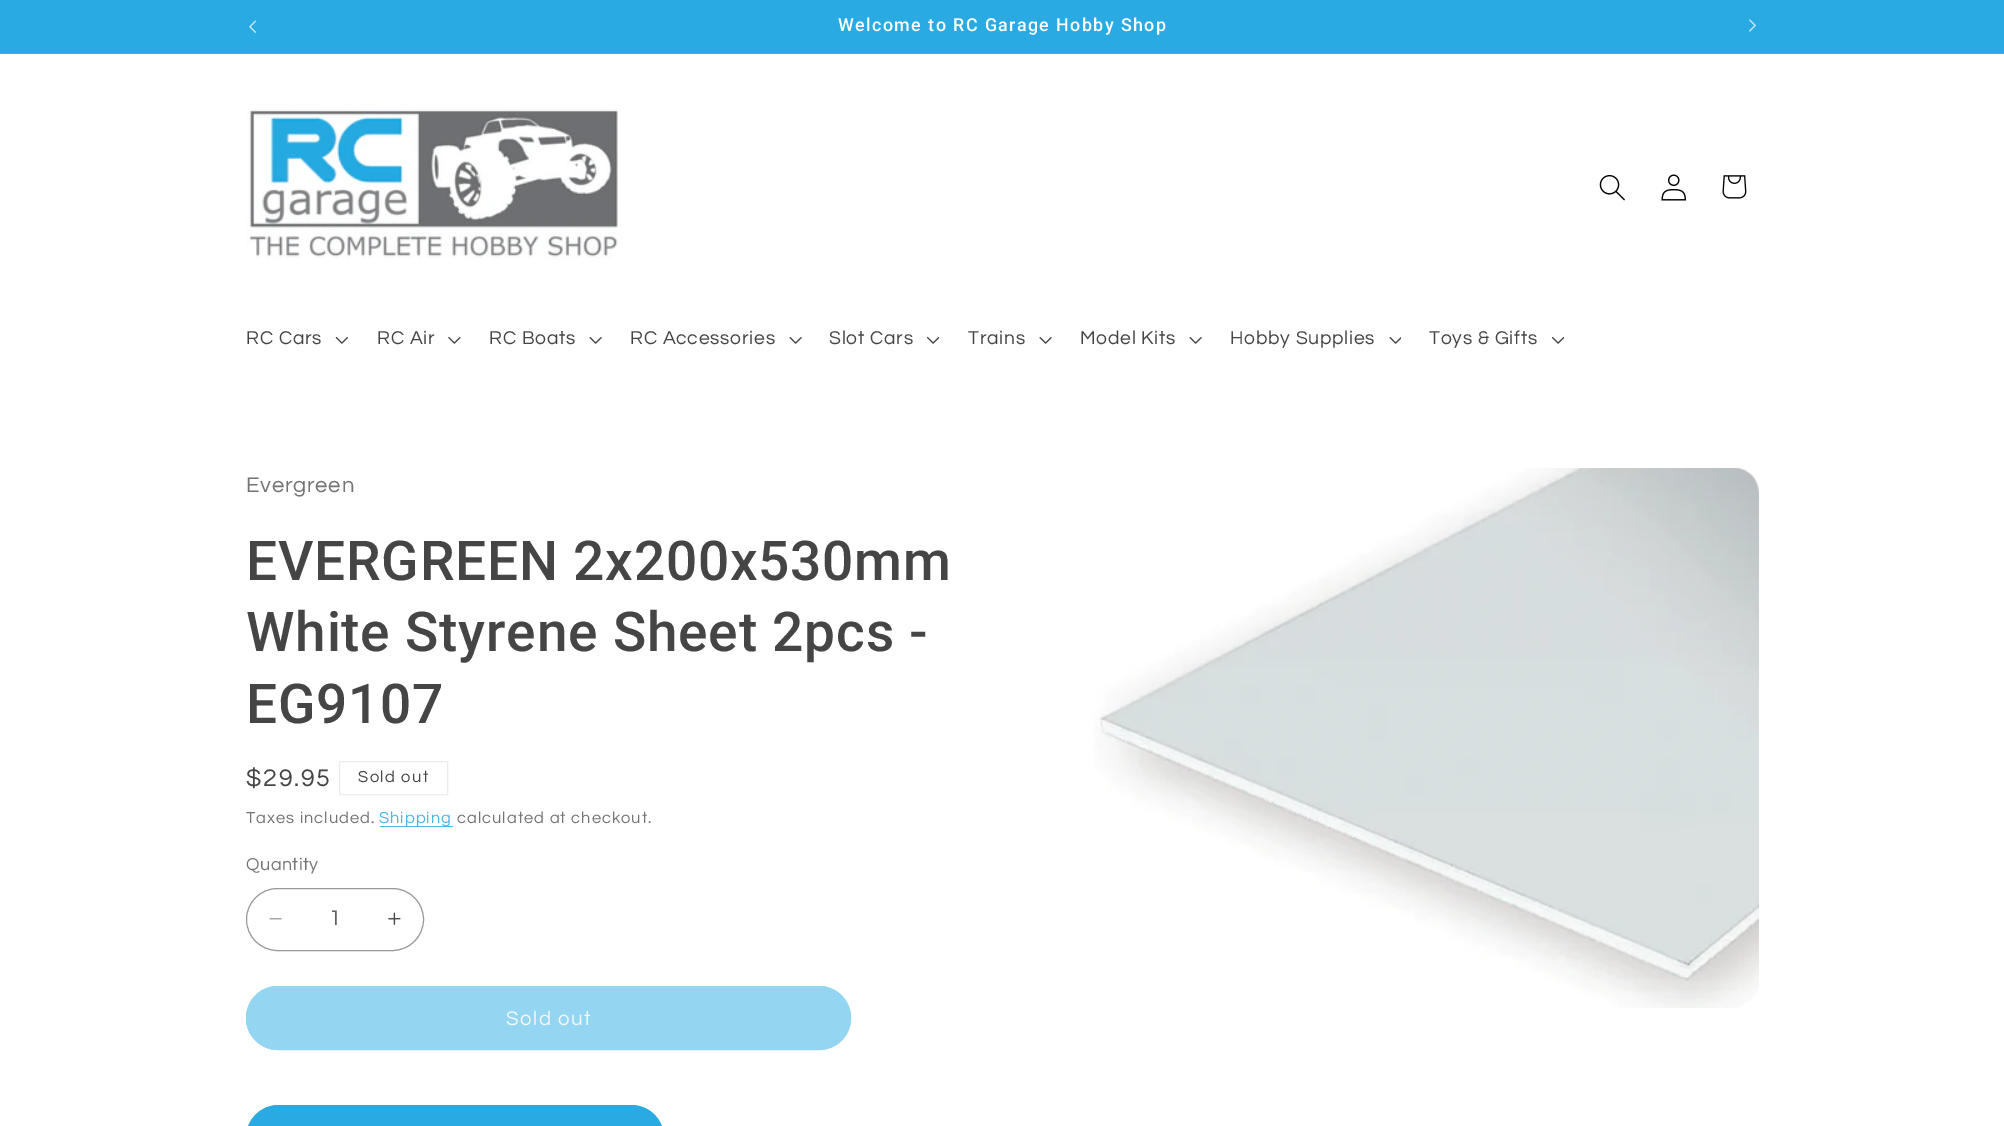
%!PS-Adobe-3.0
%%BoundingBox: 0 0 2004 1126
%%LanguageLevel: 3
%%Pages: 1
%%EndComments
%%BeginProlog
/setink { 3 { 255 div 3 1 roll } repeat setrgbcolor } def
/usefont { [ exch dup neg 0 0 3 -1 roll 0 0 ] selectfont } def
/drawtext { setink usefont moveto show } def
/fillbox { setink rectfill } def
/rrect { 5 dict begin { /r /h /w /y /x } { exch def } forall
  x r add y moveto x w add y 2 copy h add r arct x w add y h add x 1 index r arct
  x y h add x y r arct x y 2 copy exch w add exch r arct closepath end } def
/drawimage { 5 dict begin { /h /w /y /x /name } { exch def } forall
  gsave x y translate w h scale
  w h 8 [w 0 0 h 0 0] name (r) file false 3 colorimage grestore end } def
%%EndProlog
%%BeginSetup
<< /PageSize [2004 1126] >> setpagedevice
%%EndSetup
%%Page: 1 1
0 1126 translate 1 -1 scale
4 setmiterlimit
0 0 2004 1126 255 255 255 fillbox
0 0 2004 53 41 170 226 fillbox
0 53 2004 1 58 177 228 fillbox
(assets/img1.rgb) 249 20 7 13 drawimage
/Roboto-Medium 17.9 usefont
255 255 255 setink
838 31 moveto 1.4 0 (Welcome to RC Garage Hobby Shop) ashow
(assets/img2.rgb) 1749 19 7 13 drawimage
(assets/img3.rgb) 246 109 375 150 drawimage
(assets/img4.rgb) 1599 174 26 27 drawimage
(assets/img5.rgb) 1661 174 26 27 drawimage
(assets/img6.rgb) 1722 175 25 24 drawimage
/Questrial-Regular 19.25 usefont
69 69 69 setink
246 344 moveto 0.8 0 (RC Cars) ashow
(assets/img7.rgb) 335 337 13 7 drawimage
377 344 moveto 0.8 0 (RC Air) ashow
(assets/img8.rgb) 448 337 13 7 drawimage
489 344 moveto 0.8 0 (RC Boats) ashow
(assets/img9.rgb) 589 337 13 7 drawimage
630 344 moveto 0.8 0 (RC Accessories) ashow
(assets/img9.rgb) 789 337 13 7 drawimage
829 344 moveto 0.8 0 (Slot Cars) ashow
(assets/img10.rgb) 927 337 13 7 drawimage
968 344 moveto 0.8 0 (Trains) ashow
(assets/img9.rgb) 1039 337 13 7 drawimage
1080 344 moveto 0.8 0 (Model Kits) ashow
(assets/img9.rgb) 1189 337 13 7 drawimage
1230 344 moveto 0.8 0 (Hobby Supplies) ashow
(assets/img11.rgb) 1389 337 12 7 drawimage
1429 344 moveto 0.8 0 (Toys & Gifts) ashow
(assets/img10.rgb) 1552 337 13 7 drawimage
/Questrial-Regular 22 usefont
116 116 116 setink
246 492 moveto 0.8 0 (Evergreen) ashow
/Roboto-Medium 55 usefont
69 69 69 setink
246 580 moveto 0.8 0 (EVERGREEN 2x200x530mm) ashow
246 651 moveto 0.8 0 (White Styrene Sheet 2pcs -) ashow
246 723 moveto 0.8 0 (EG9107) ashow
/Questrial-Regular 25 usefont
246 786 moveto 1.75 0 ($29.95) ashow
236 236 236 setink
339.5 761.5 108 33 rectstroke
/Questrial-Regular 16.5 usefont
69 69 69 setink
358 782 moveto 1.4 0 (Sold out) ashow
116 116 116 setink
246 823 moveto 1 0 (Taxes included.) ashow
380 826 73 1 73 183 230 fillbox
379 823 moveto 1 0 (Shipping) ashow
116 116 116 setink
457 823 moveto 1 0 (calculated at checkout.) ashow
/Questrial-Regular 17.9 usefont
246 870 moveto 0.5 0 (Quantity) ashow
(assets/img12.rgb) 269 918 13 2 drawimage
(assets/img13.rgb) 388 912 13 13 drawimage
153 153 153 setink
246.5 888.5 177 62 31 rrect stroke
(1) 329 925 /Questrial-Regular 22 97 97 97 drawtext
148 213 241 setink
246 986 605 64 32 rrect fill
246.5 986.5 604 63 31.5 rrect stroke
/Questrial-Regular 20.5 usefont
247 248 250 setink
506 1025 moveto 1.4 0 (Sold out) ashow
41 170 226 setink
246.5 1105.5 417 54 32 rrect gsave fill grestore
stroke
(assets/img14.rgb) 1093 468 666 540 drawimage
showpage
%%EOF
